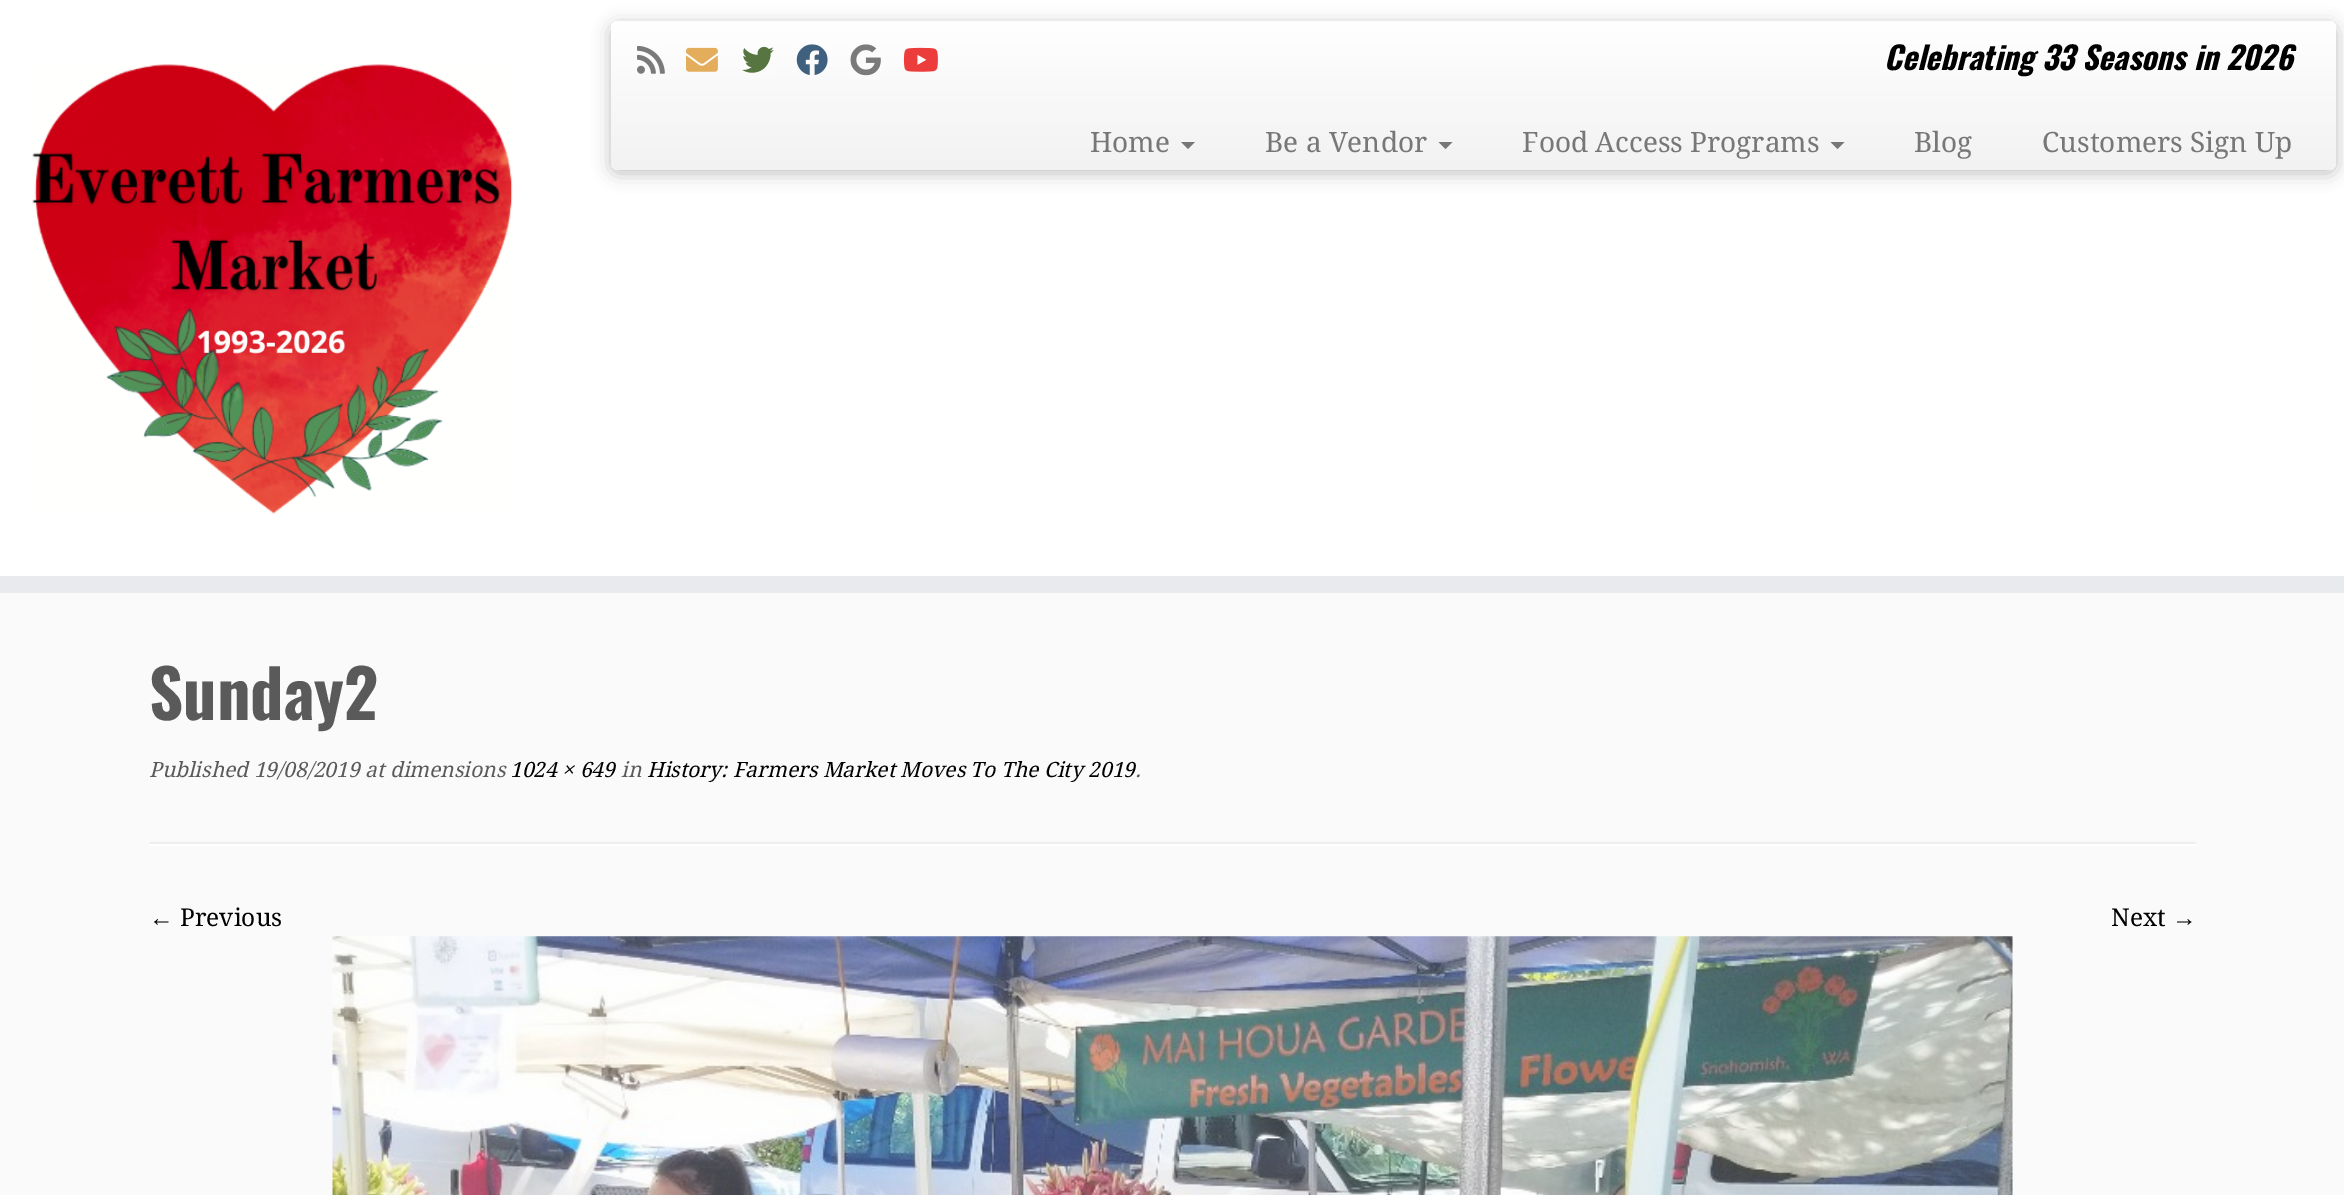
%!PS-Adobe-3.0
%%BoundingBox: 0 0 2344 1195
%%LanguageLevel: 3
%%Pages: 1
%%EndComments
%%BeginProlog
/setink { 3 { 255 div 3 1 roll } repeat setrgbcolor } def
/usefont { [ exch dup neg 0 0 3 -1 roll 0 0 ] selectfont } def
/drawtext { setink usefont moveto show } def
/fillbox { setink rectfill } def
/setalpha { dup .setfillconstantalpha .setstrokeconstantalpha } def
/rrect { 5 dict begin { /r /h /w /y /x } { exch def } forall
  x r add y moveto x w add y 2 copy h add r arct x w add y h add x 1 index r arct
  x y h add x y r arct x y 2 copy exch w add exch r arct closepath end } def
/softshadow { 12 dict begin { /a /b /q /h /w /y /x } { exch def } forall gsave /was 0 def
  9 -2 -9 { dup b mul 4 div /e exch def 1 sub .425 mul 2.718 exch exp 1 add a .99 .min exch div /now exch def
    1 1 now sub 1 was sub div sub setalpha /was now def
    w h .min e 2 mul add 0 gt { x e sub y e sub w e 2 mul add h e 2 mul add
      q e add b .6 mul add w h .min 2 div e add .min 0 .max rrect fill } if } for grestore end } def
/drawimage { 5 dict begin { /h /w /y /x /name } { exch def } forall
  gsave x y translate w h scale
  w h 8 [w 0 0 h 0 0] name (r) file false 3 colorimage grestore end } def
%%EndProlog
%%BeginSetup
<< /PageSize [2344 1195] /PageUsesTransparency true >> setpagedevice
%%EndSetup
%%Page: 1 1
0 .pushpdf14devicefilter
0 1195 translate 1 -1 scale
4 setmiterlimit
0 0 2344 1195 250 250 250 fillbox
0 0 2344 576 255 255 255 fillbox
0 576 2344 17 233 234 238 fillbox
(assets/img1.rgb) 32 64 481 450 drawimage
0 0 0 setink
611 25 1725 148 7 9 0.25 softshadow
gsave 611 21 1725 149 7 rrect clip newpath
<< /ShadingType 2 /ColorSpace /DeviceRGB /Coords [1474 21 1474 170] /Extend [true true] /Function << /FunctionType 2 /Domain [0 1] /C0 [1 1 1] /C1 [0.949 0.949 0.949] /N 1 >> >> shfill grestore
(assets/img2.rgb) 637 45 28 29 drawimage
(assets/img3.rgb) 686 47 32 25 drawimage
(assets/img4.rgb) 742 46 32 27 drawimage
(assets/img5.rgb) 796 44 32 31 drawimage
(assets/img6.rgb) 850 44 31 32 drawimage
(assets/img7.rgb) 903 47 35 25 drawimage
(Celebrating 33 Seasons in 2026) 1884 70 /Oswald-BoldItalic 31.5 0 0 0 drawtext
(Home) 1090 152 /DroidSerif-Regular 28 119 119 119 drawtext
1181 142 moveto 1195 142 lineto 1188 149 lineto closepath fill
(Be a Vendor) 1265 152 /DroidSerif-Regular 28 119 119 119 drawtext
1438.5 142 moveto 1452.5 142 lineto 1445.5 149 lineto closepath fill
(Food Access Programs) 1522 152 /DroidSerif-Regular 28 119 119 119 drawtext
1830.5 142 moveto 1844.5 142 lineto 1837.5 149 lineto closepath fill
(Blog) 1914 152 /DroidSerif-Regular 28 119 119 119 drawtext
(Customers Sign Up) 2042 152 /DroidSerif-Regular 28 119 119 119 drawtext
(Sunday2) 149 720 /Oswald-Bold 66.5 90 90 90 drawtext
(Published 19/08/2019 at dimensions) 149 777 /DroidSerif-Italic 21 90 90 90 drawtext
(1024 × 649) 510 777 /DroidSerif-Italic 21 0 0 0 drawtext
(in) 621 777 /DroidSerif-Italic 21 90 90 90 drawtext
(History: Farmers Market Moves To The City 2019) 647 777 /DroidSerif-Italic 21 0 0 0 drawtext
(.) 1135 777 /DroidSerif-Italic 21 90 90 90 drawtext
149 842 2047 2 238 238 238 fillbox
149 844 2047 2 255 255 255 fillbox
(←) 149 926 /LiberationSerif-Regular 24.5 0 0 0 drawtext
(Previous) 180 926 /DroidSerif-Regular 24.5 0 0 0 drawtext
(Next) 2111 926 /DroidSerif-Regular 24.5 0 0 0 drawtext
(→) 2172 926 /LiberationSerif-Regular 24.5 0 0 0 drawtext
(assets/img8.rgb) 332 936 1681 259 drawimage
.poppdf14devicefilter showpage
%%EOF
